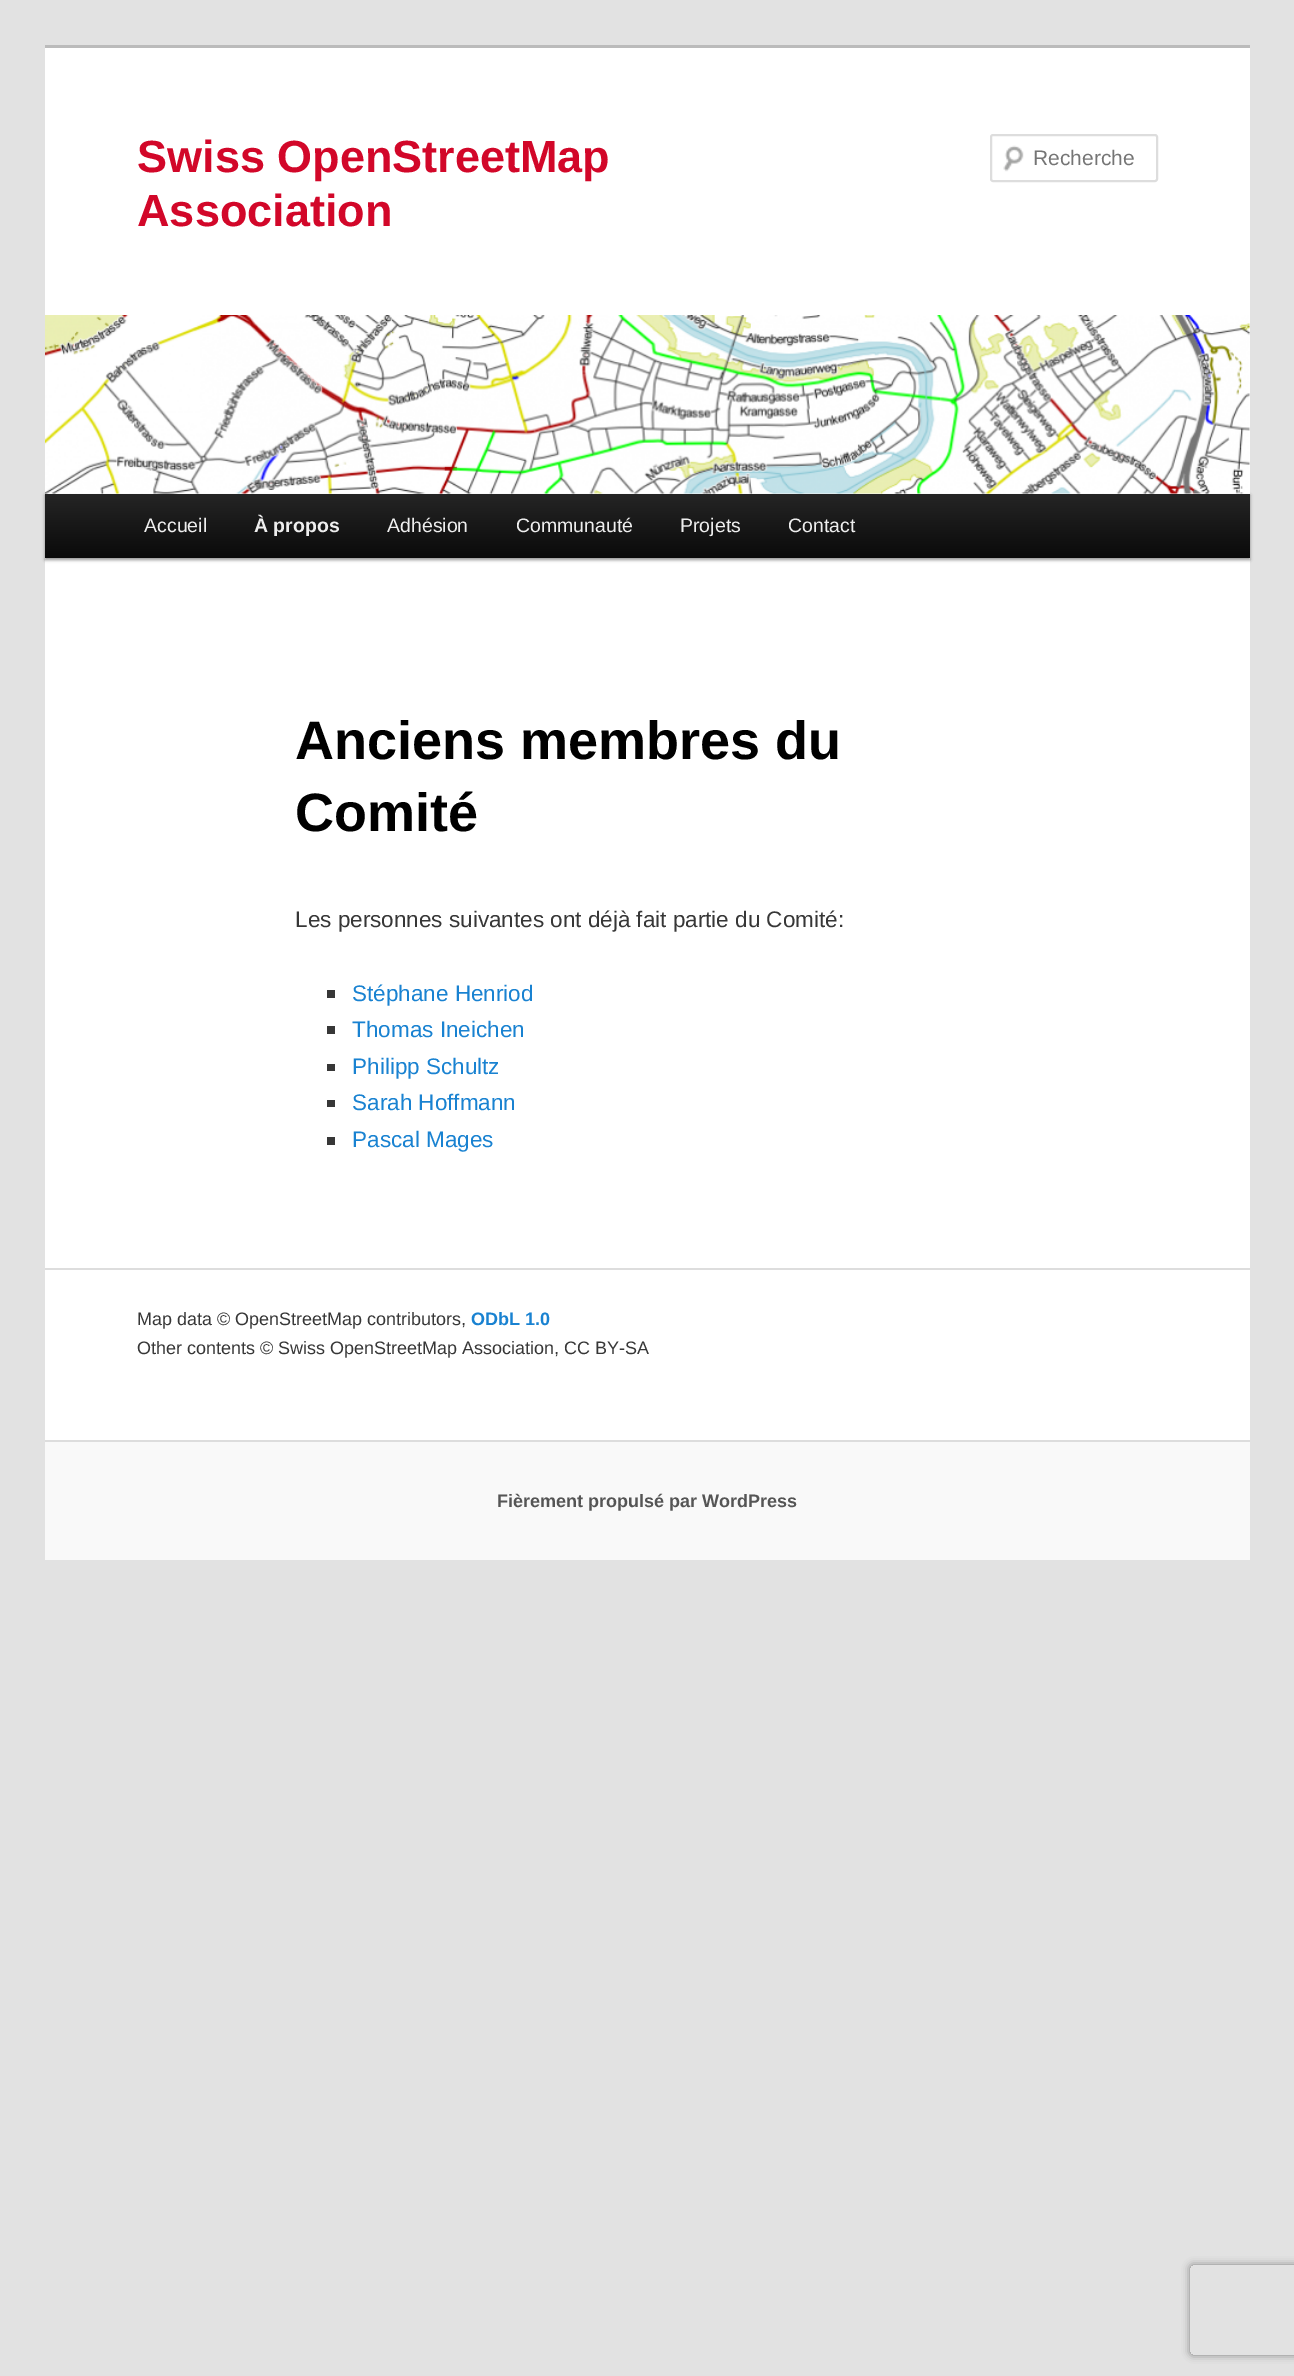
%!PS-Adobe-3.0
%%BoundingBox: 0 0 1294 2376
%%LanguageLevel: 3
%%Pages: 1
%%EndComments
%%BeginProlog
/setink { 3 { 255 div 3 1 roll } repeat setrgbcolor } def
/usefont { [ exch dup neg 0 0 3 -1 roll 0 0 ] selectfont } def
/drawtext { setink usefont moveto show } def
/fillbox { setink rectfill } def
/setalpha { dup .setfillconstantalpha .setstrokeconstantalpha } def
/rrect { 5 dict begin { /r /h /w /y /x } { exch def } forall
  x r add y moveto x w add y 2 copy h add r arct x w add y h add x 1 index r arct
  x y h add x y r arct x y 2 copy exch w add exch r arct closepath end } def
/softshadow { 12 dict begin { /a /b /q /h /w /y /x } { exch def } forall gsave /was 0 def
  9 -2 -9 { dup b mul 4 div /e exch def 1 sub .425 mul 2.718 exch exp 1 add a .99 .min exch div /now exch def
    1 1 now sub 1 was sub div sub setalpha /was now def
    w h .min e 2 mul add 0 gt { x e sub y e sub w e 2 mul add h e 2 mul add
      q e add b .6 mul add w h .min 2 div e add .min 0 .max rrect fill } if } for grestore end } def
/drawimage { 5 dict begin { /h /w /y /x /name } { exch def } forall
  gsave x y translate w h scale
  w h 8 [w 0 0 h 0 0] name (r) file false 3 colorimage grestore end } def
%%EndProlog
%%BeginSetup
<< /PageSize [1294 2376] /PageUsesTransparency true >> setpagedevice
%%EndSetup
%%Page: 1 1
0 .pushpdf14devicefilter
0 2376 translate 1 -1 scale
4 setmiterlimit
0 0 1294 2376 226 226 226 fillbox
45 48 1205 1392 255 255 255 fillbox
45 45 1205 3 187 187 187 fillbox
(Swiss OpenStreetMap) 137 172 /LiberationSans-Bold 45 210 7 41 drawtext
(Association) 137 226 /LiberationSans-Bold 45 210 7 41 drawtext
(assets/img1.rgb) 1003 145 21 27 drawimage
221 221 221 setink
2 setlinewidth
991 135 166 46 2 rrect stroke
(Recherche) 1033 165 /LiberationSans-Regular 21 117 117 117 drawtext
0 0 0 setink
45 495 1205 65 0 1.5 0.4 softshadow
(assets/img2.rgb) 45 315 1205 179 drawimage
gsave 45 494 moveto 1250 494 lineto 1250 558 lineto 45 558 lineto closepath clip newpath
<< /ShadingType 2 /ColorSpace /DeviceRGB /Coords [647 493 647 558] /Extend [true true] /Function << /FunctionType 2 /Domain [0 1] /C0 [0.145 0.145 0.145] /C1 [0.039 0.039 0.039] /N 1 >> >> shfill grestore
(Accueil) 144 532 /LiberationSans-Regular 19.5 238 238 238 drawtext
(À propos) 254 532 /LiberationSans-Bold 19.5 238 238 238 drawtext
(Adhésion) 387 532 /LiberationSans-Regular 19.5 238 238 238 drawtext
(Communauté) 516 532 /LiberationSans-Regular 19.5 238 238 238 drawtext
(Projets) 680 532 /LiberationSans-Regular 19.5 238 238 238 drawtext
(Contact) 788 532 /LiberationSans-Regular 19.5 238 238 238 drawtext
(Anciens membres du) 295 759 /LiberationSans-Bold 54 0 0 0 drawtext
(Comité) 295 831 /LiberationSans-Bold 54 0 0 0 drawtext
(Les personnes suivantes ont déjà fait partie du Comité:) 295 927 /LiberationSans-Regular 22.5 55 55 55 drawtext
327 990 8 8 55 55 55 fillbox
(Stéphane Henriod) 352 1001 /LiberationSans-Regular 22.5 25 130 209 drawtext
327 1026 8 8 55 55 55 fillbox
(Thomas Ineichen) 352 1037 /LiberationSans-Regular 22.5 25 130 209 drawtext
327 1064 8 7 55 55 55 fillbox
(Philipp Schultz) 352 1074 /LiberationSans-Regular 22.5 25 130 209 drawtext
327 1100 8 7 55 55 55 fillbox
(Sarah Hoffmann) 352 1110 /LiberationSans-Regular 22.5 25 130 209 drawtext
327 1137 8 8 55 55 55 fillbox
(Pascal Mages) 352 1147 /LiberationSans-Regular 22.5 25 130 209 drawtext
45 1268 1205 2 221 221 221 fillbox
(Map data © OpenStreetMap contributors,) 137 1325 /LiberationSans-Regular 18 55 55 55 drawtext
(ODbL 1.0) 471 1325 /LiberationSans-Bold 18 25 130 209 drawtext
(Other contents © Swiss OpenStreetMap Association, CC BY-SA) 137 1354 /LiberationSans-Regular 18 55 55 55 drawtext
45 1442 1205 118 249 249 249 fillbox
45 1440 1205 2 221 221 221 fillbox
(Fièrement propulsé par WordPress) 497 1507 /LiberationSans-Bold 18 85 85 85 drawtext
gsave
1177 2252 moveto 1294 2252 lineto 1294 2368 lineto 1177 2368 lineto closepath 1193 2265 moveto 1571 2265 lineto 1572.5 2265 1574 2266.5 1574 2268 curveto 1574 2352 lineto 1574 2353.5 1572.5 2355 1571 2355 curveto 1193 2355 lineto 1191.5 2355 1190 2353.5 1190 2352 curveto 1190 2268 lineto 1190 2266.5 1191.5 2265 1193 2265 curveto closepath eoclip newpath
128 128 128 setink
1190 2265 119 90 3 4 1 softshadow
grestore
.poppdf14devicefilter showpage
%%EOF
